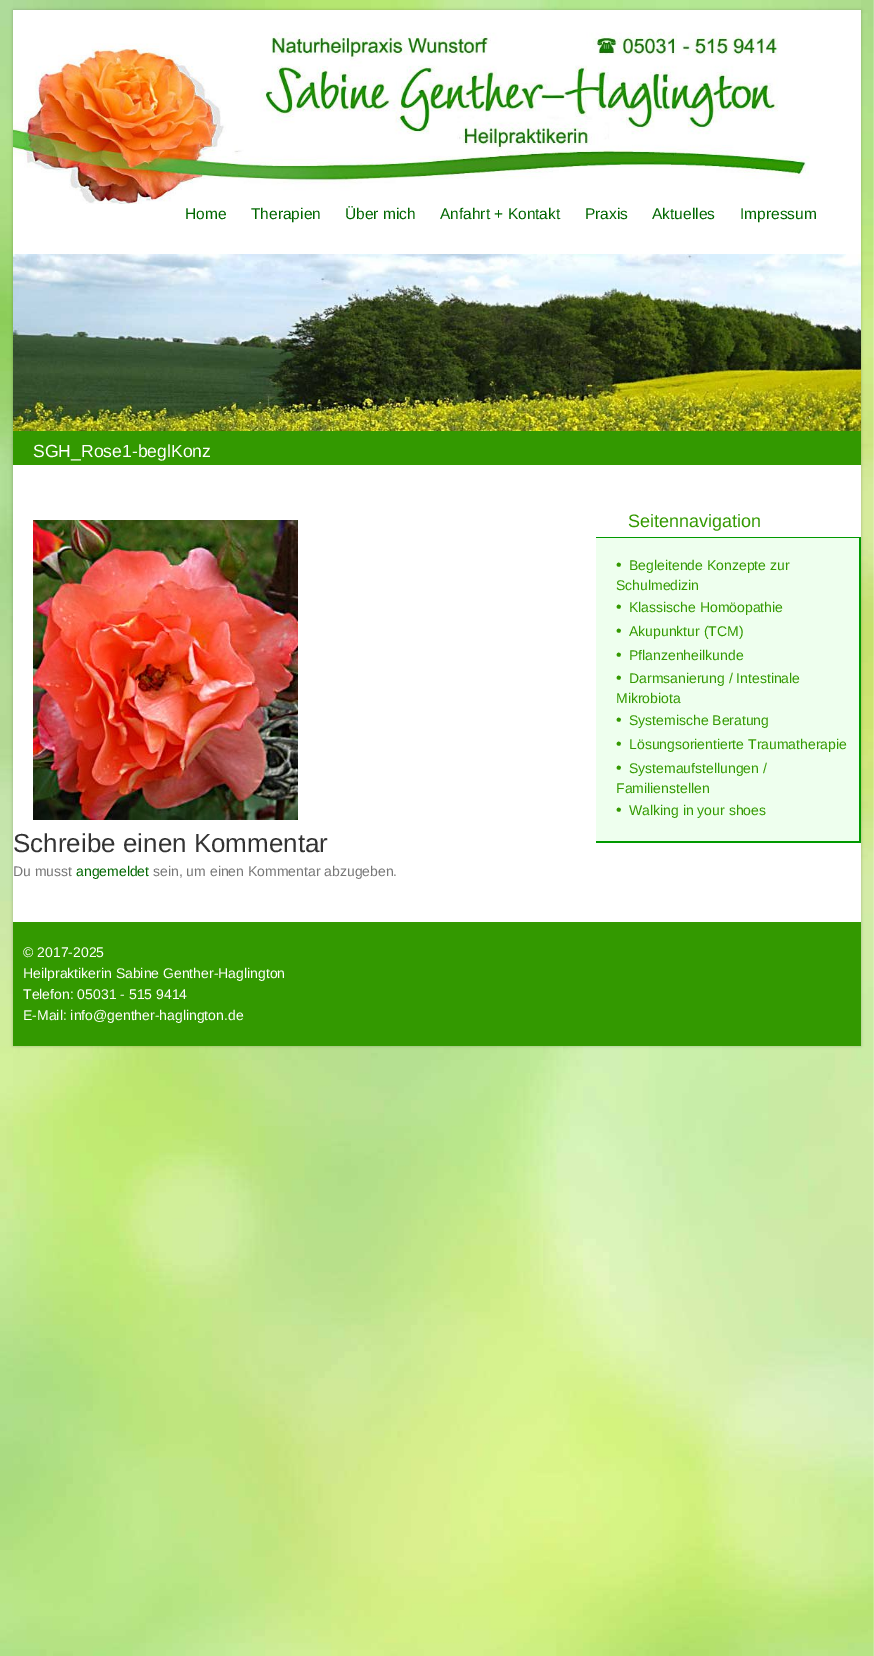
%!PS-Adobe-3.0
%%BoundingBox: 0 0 874 1656
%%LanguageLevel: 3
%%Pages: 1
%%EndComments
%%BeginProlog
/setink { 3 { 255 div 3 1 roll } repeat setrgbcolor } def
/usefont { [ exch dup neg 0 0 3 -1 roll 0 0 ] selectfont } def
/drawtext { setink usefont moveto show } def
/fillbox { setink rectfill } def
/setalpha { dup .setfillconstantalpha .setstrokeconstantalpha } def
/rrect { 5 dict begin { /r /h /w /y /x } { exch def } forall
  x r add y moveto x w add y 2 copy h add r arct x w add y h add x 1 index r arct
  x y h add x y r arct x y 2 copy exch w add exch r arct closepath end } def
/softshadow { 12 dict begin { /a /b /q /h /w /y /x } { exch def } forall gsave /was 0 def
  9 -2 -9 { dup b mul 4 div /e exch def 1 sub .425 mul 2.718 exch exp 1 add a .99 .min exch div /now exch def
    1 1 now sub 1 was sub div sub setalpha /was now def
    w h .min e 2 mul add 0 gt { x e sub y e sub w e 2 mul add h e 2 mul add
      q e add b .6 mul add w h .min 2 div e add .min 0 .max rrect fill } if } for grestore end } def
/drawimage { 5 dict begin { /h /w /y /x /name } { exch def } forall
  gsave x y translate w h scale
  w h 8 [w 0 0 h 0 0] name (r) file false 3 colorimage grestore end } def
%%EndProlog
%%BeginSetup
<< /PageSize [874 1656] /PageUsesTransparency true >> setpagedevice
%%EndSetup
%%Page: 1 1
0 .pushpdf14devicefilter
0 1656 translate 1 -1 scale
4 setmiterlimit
0 0 874 1656 255 255 255 fillbox
(assets/img1.rgb) 0 0 874 1656 drawimage
0 0 0 setink
13 10 848 1036 0 1.5 0.2 softshadow
13 10 848 912 255 255 255 fillbox
(assets/img2.rgb) 13 32 797 172 drawimage
(Home) 185 219 /LiberationSans-Regular 15.5 0 102 0 drawtext
(Therapien) 251 219 /LiberationSans-Regular 15.5 0 102 0 drawtext
(Über mich) 345 219 /LiberationSans-Regular 15.5 0 102 0 drawtext
(Anfahrt + Kontakt) 440 219 /LiberationSans-Regular 15.5 0 102 0 drawtext
(Praxis) 585 219 /LiberationSans-Regular 15.5 0 102 0 drawtext
(Aktuelles) 652 219 /LiberationSans-Regular 15.5 0 102 0 drawtext
(Impressum) 740 219 /LiberationSans-Regular 15.5 0 102 0 drawtext
(assets/img3.rgb) 13 254 848 177 drawimage
13 431 848 34 51 153 0 fillbox
(SGH_Rose1-beglKonz) 33 457 /LiberationSans-Regular 17.6 255 255 255 drawtext
(Seitennavigation) 628 527 /LiberationSans-Regular 18 51 153 0 drawtext
596 538 263 303 238 255 238 fillbox
596 537 265 1 0 153 0 fillbox
859 537 2 306 0 153 0 fillbox
596 841 265 2 0 153 0 fillbox
(•) 616 570 /LiberationSerif-Bold 16 51 153 0 drawtext
(Begleitende Konzepte zur) 629 570 /LiberationSans-Regular 14 51 153 0 drawtext
(Schulmedizin) 616 590 /LiberationSans-Regular 14 51 153 0 drawtext
(•) 616 612 /LiberationSerif-Bold 16 51 153 0 drawtext
(Klassische Homöopathie) 629 612 /LiberationSans-Regular 14 51 153 0 drawtext
(•) 616 636 /LiberationSerif-Bold 16 51 153 0 drawtext
(Akupunktur \(TCM\)) 629 636 /LiberationSans-Regular 14 51 153 0 drawtext
(•) 616 660 /LiberationSerif-Bold 16 51 153 0 drawtext
(Pflanzenheilkunde) 629 660 /LiberationSans-Regular 14 51 153 0 drawtext
(•) 616 683 /LiberationSerif-Bold 16 51 153 0 drawtext
(Darmsanierung / Intestinale) 629 683 /LiberationSans-Regular 14 51 153 0 drawtext
(Mikrobiota) 616 703 /LiberationSans-Regular 14 51 153 0 drawtext
(•) 616 725 /LiberationSerif-Bold 16 51 153 0 drawtext
(Systemische Beratung) 629 725 /LiberationSans-Regular 14 51 153 0 drawtext
(•) 616 749 /LiberationSerif-Bold 16 51 153 0 drawtext
(Lösungsorientierte Traumatherapie) 629 749 /LiberationSans-Regular 14 51 153 0 drawtext
(•) 616 773 /LiberationSerif-Bold 16 51 153 0 drawtext
(Systemaufstellungen /) 629 773 /LiberationSans-Regular 14 51 153 0 drawtext
(Familienstellen) 616 793 /LiberationSans-Regular 14 51 153 0 drawtext
(•) 616 815 /LiberationSerif-Bold 16 51 153 0 drawtext
(Walking in your shoes) 629 815 /LiberationSans-Regular 14 51 153 0 drawtext
(assets/img4.rgb) 33 520 265 300 drawimage
(Schreibe einen Kommentar) 13 852 /LiberationSans-Regular 26 51 51 51 drawtext
(Du musst) 13 876 /LiberationSans-Regular 14 119 119 119 drawtext
(angemeldet) 76 876 /LiberationSans-Regular 14 0 102 0 drawtext
(sein, um einen Kommentar abzugeben.) 153 876 /LiberationSans-Regular 14 119 119 119 drawtext
13 922 848 124 51 153 0 fillbox
(© 2017-2025) 23 957 /LiberationSans-Regular 14 255 255 255 drawtext
(Heilpraktikerin Sabine Genther-Haglington) 23 978 /LiberationSans-Regular 14 255 255 255 drawtext
(Telefon: 05031 - 515 9414) 23 999 /LiberationSans-Regular 14 255 255 255 drawtext
(E-Mail: info@genther-haglington.de) 23 1020 /LiberationSans-Regular 14 255 255 255 drawtext
.poppdf14devicefilter showpage
%%EOF
